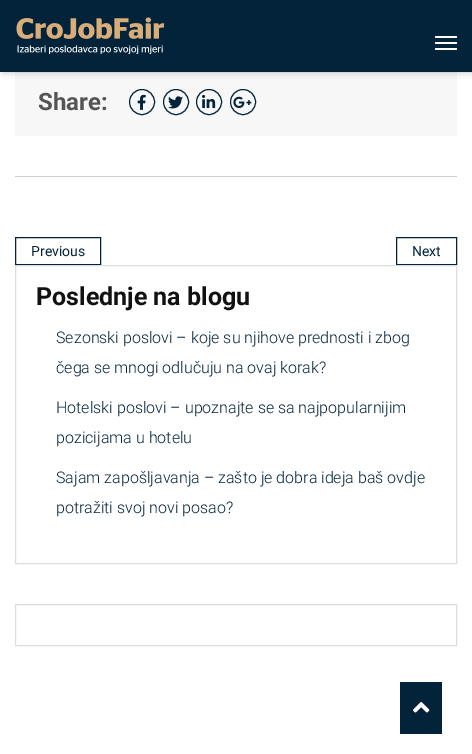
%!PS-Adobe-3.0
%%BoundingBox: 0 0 472 754
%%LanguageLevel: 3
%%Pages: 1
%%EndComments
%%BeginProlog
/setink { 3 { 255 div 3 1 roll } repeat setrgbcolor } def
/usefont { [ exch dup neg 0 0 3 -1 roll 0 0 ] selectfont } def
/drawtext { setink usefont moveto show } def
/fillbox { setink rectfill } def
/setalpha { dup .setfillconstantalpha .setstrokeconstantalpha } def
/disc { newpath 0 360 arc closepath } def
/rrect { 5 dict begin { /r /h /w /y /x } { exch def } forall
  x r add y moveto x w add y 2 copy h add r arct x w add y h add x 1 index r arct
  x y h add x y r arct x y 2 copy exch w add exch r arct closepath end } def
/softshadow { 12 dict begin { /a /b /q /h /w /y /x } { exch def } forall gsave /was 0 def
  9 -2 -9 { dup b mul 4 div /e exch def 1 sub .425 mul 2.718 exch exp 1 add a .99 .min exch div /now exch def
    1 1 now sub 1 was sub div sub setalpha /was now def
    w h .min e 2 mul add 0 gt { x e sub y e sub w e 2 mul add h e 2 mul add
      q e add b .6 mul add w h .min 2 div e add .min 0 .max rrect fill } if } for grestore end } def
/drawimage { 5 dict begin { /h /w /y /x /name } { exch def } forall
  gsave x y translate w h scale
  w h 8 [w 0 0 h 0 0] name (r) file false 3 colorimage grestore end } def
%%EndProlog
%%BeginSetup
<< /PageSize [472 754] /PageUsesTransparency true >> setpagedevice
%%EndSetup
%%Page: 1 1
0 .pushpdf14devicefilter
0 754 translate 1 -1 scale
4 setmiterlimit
0 0 472 754 255 255 255 fillbox
15 72 442 64 247 247 247 fillbox
0 0 0 setink
3 0 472 72 0 4 0.25 softshadow
0 0 472 72 2 35 58 fillbox
(assets/img1.rgb) 16 17 148 37 drawimage
255 255 255 setink
435 36 22 2 1 rrect fill
435 42 22 2 1 rrect fill
435 48 22 2 1 rrect fill
15 176 442 1 207 207 207 fillbox
(Share:) 38 110 /Roboto-Bold 24 85 85 85 drawtext
2 35 58 setink
142 102 12.5 disc stroke
(assets/img2.rgb) 137 94 9 16 drawimage
176 102 12.5 disc stroke
(assets/img3.rgb) 168 96 15 13 drawimage
209 102 12.5 disc stroke
(assets/img4.rgb) 202 94 14 14 drawimage
243 102 12.5 disc stroke
(assets/img5.rgb) 233 96 19 12 drawimage
15.5 237.5 85 27 rectstroke
(Previous) 31 256 /Roboto-Regular 14 2 35 58 drawtext
396.5 237.5 60 27 rectstroke
(Next) 412 256 /Roboto-Regular 14 2 35 58 drawtext
221 221 221 setink
15.5 265.5 441 298 rectstroke
(Poslednje na blogu) 36 305 /Roboto-Bold 25 17 17 17 drawtext
(Sezonski poslovi – koje su njihove prednosti i zbog) 56 343 /Roboto-Light 16 2 35 58 drawtext
(čega se mnogi odlučuju na ovaj korak?) 56 373 /Roboto-Light 16 2 35 58 drawtext
(Hotelski poslovi – upoznajte se sa najpopularnijim) 56 413 /Roboto-Light 16 2 35 58 drawtext
(pozicijama u hotelu) 56 443 /Roboto-Light 16 2 35 58 drawtext
(Sajam zapošljavanja – zašto je dobra ideja baš ovdje) 56 483 /Roboto-Light 16 2 35 58 drawtext
(potražiti svoj novi posao?) 56 513 /Roboto-Light 16 2 35 58 drawtext
221 221 221 setink
15.5 604.5 441 41 rectstroke
400 682 42 52 2 35 58 fillbox
(assets/img6.rgb) 413 702 17 11 drawimage
.poppdf14devicefilter showpage
%%EOF
